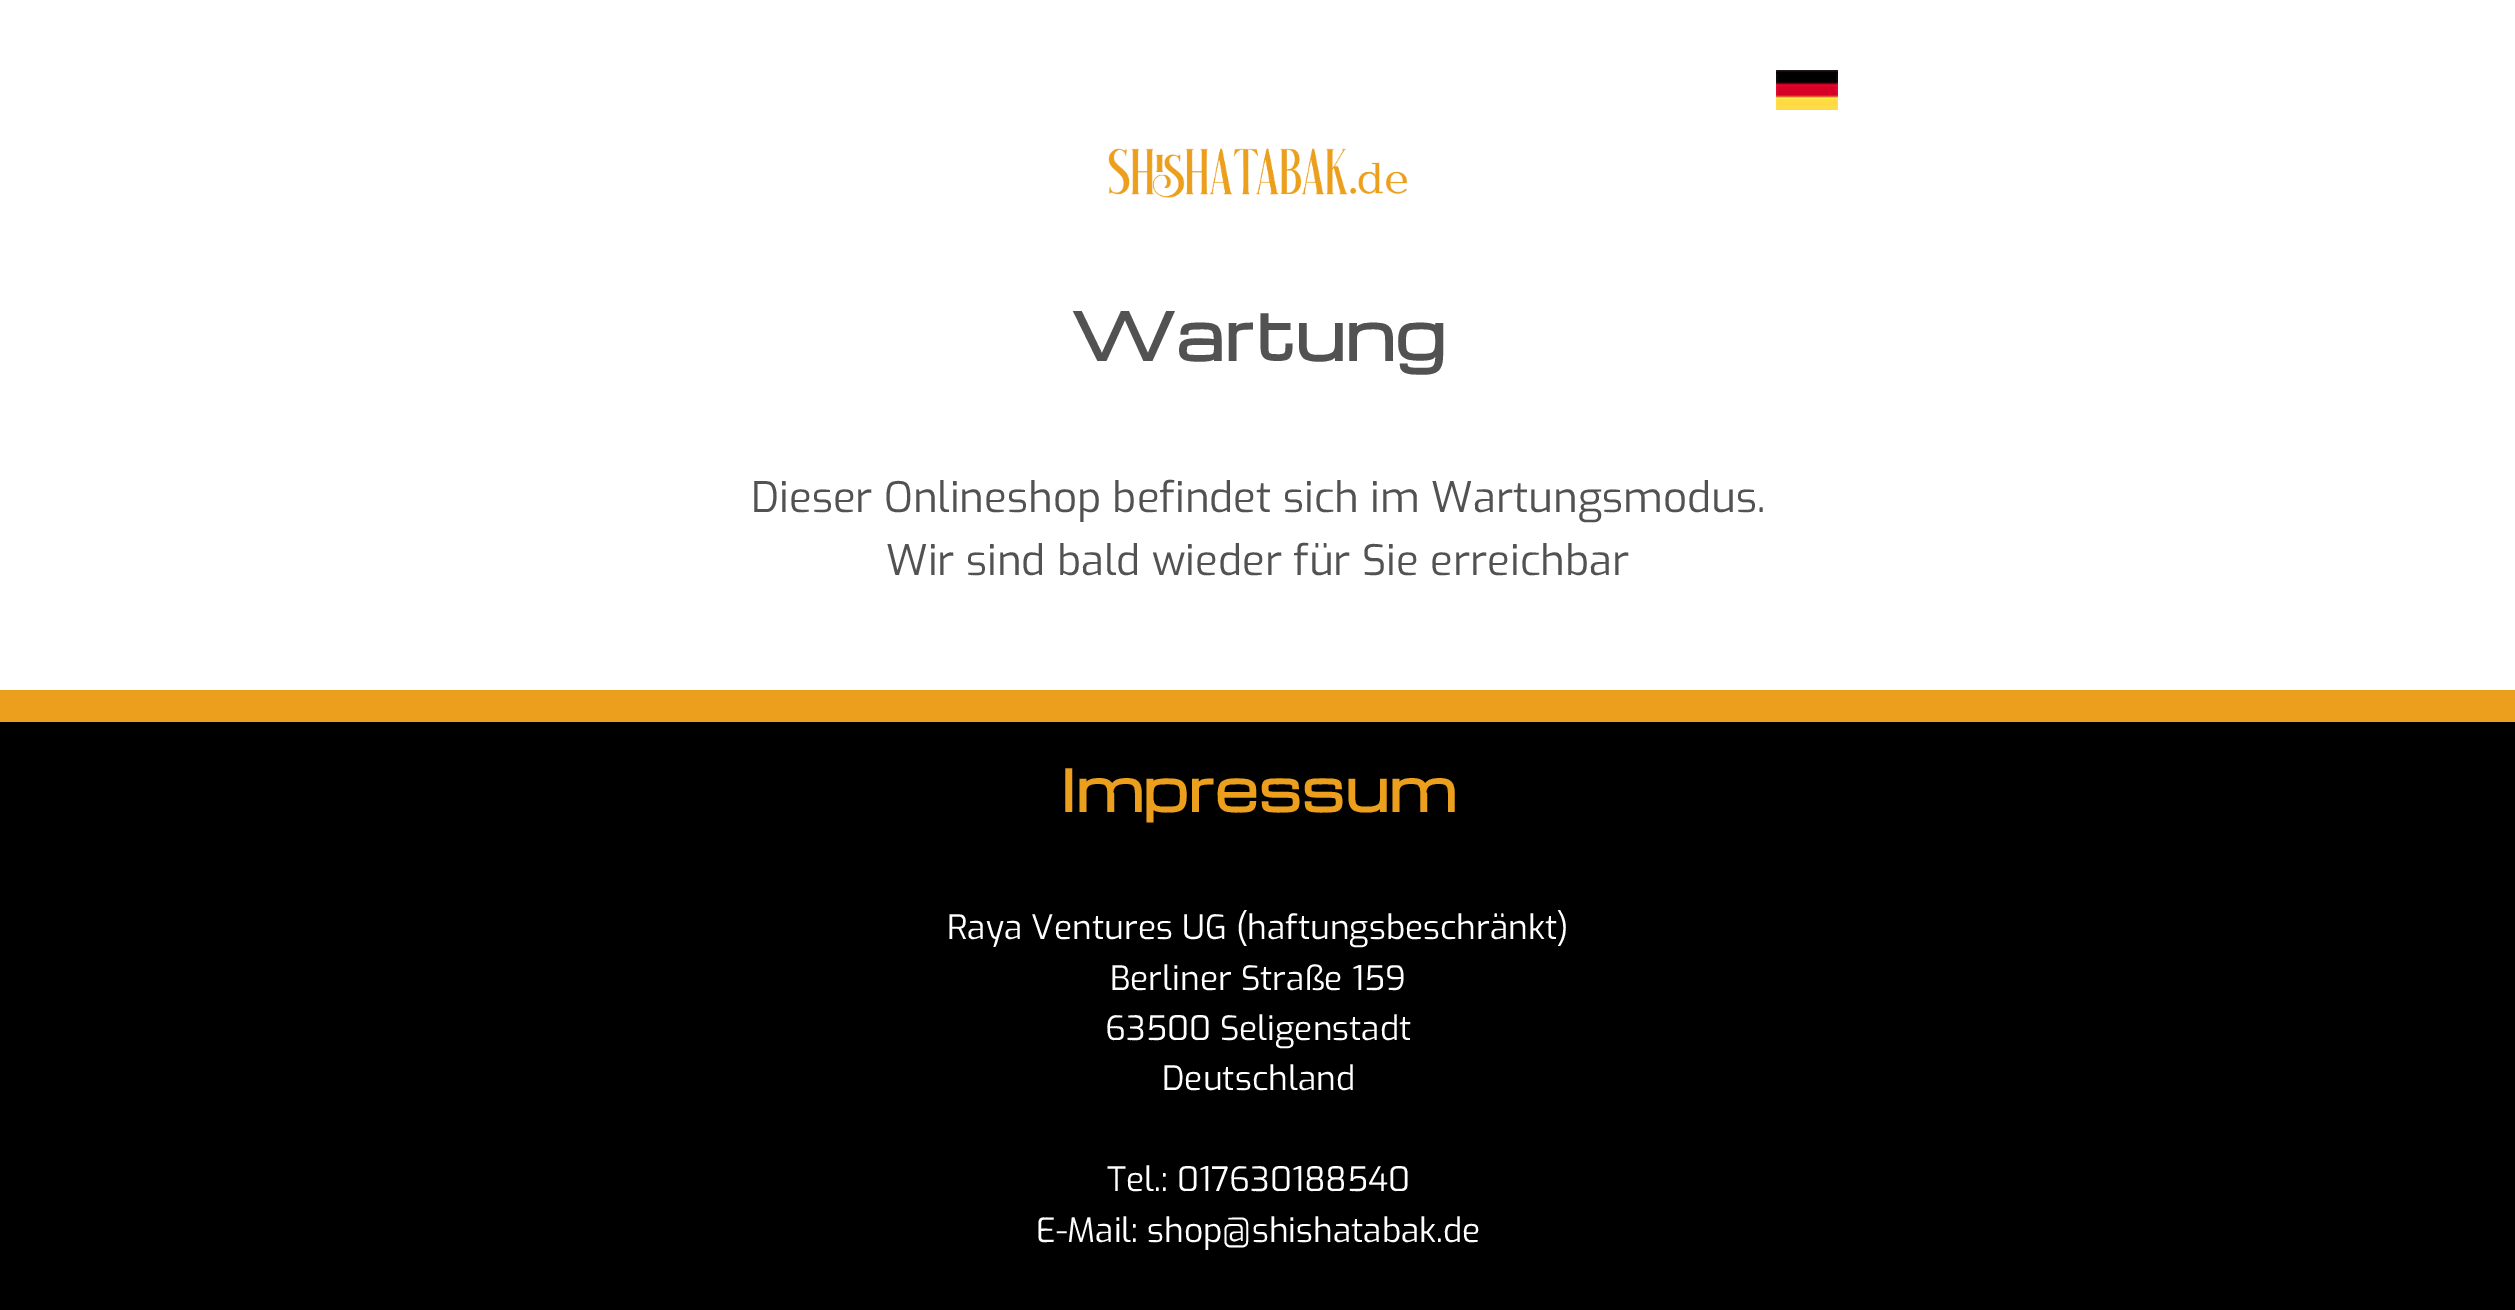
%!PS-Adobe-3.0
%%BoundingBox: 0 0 2515 1310
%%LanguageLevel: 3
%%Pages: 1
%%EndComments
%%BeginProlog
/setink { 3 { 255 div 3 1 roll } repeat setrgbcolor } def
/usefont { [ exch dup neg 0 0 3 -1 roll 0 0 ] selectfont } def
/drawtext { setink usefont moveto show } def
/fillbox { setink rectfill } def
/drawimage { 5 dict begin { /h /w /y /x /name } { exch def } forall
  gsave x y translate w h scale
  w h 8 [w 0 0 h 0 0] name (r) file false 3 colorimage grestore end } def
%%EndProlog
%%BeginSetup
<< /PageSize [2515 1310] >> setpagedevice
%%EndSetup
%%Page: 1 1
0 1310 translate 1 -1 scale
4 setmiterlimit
0 0 2515 1310 255 255 255 fillbox
(assets/img1.rgb) 1776 70 62 40 drawimage
(assets/img2.rgb) 1108 148 300 50 drawimage
(Wartung) 1071 361 /Michroma-Bold 64 82 82 82 drawtext
(Dieser Onlineshop befindet sich im Wartungsmodus.) 751 512 /Exo-Regular 42 82 82 82 drawtext
(Wir sind bald wieder für Sie erreichbar) 886 575 /Exo-Regular 42 82 82 82 drawtext
0 722 2515 588 0 0 0 fillbox
0 690 2515 32 235 159 28 fillbox
(Impressum) 1060 812 /Michroma-Bold 56 235 159 28 drawtext
(Raya Ventures UG \(haftungsbeschränkt\)) 947 939 /Exo-Regular 33.6 255 255 255 drawtext
(Berliner Straße 159) 1110 990 /Exo-Regular 33.6 255 255 255 drawtext
(63500 Seligenstadt) 1105 1040 /Exo-Regular 33.6 255 255 255 drawtext
(Deutschland) 1162 1090 /Exo-Regular 33.6 255 255 255 drawtext
(Tel.: 017630188540) 1107 1191 /Exo-Regular 33.6 255 255 255 drawtext
(E-Mail: shop@shishatabak.de) 1036 1242 /Exo-Regular 33.6 255 255 255 drawtext
showpage
%%EOF
